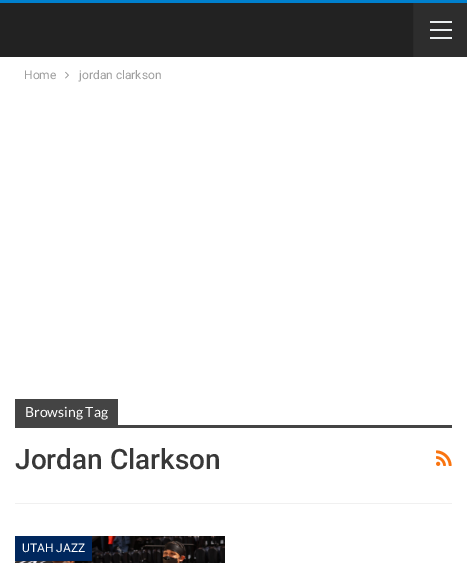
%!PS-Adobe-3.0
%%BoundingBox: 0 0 467 563
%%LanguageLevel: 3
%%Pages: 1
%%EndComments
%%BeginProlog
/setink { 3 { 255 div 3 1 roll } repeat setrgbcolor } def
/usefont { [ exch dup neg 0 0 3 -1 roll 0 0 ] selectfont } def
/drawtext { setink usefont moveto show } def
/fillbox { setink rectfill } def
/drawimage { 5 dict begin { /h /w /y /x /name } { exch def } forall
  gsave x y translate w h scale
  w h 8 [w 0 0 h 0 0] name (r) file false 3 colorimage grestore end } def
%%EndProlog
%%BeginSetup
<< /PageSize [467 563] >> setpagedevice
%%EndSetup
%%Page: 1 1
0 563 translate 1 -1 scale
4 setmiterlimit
0 0 467 563 0 128 206 fillbox
0 57 467 506 255 255 255 fillbox
0 3 413 54 34 34 34 fillbox
414 3 53 54 45 45 45 fillbox
413 3 1 54 42 42 42 fillbox
430 29 22 2 236 240 241 fillbox
430 21 22 2 236 240 241 fillbox
430 37 22 2 236 240 241 fillbox
(Home) 24 79 /Roboto-Regular 12 158 158 158 drawtext
(assets/img1.rgb) 65 71 4 8 drawimage
(jordan clarkson) 79 79 /Roboto-Regular 12 158 158 158 drawtext
15 503 437 1 240 240 240 fillbox
15 399 103 26 68 68 68 fillbox
(Browsing Tag) 25 417 /Lato-Regular 14 255 255 255 drawtext
15 425 437 3 68 68 68 fillbox
(Jordan Clarkson) 15 469 /Roboto-Medium 28 56 56 56 drawtext
(assets/img2.rgb) 436 450 16 16 drawimage
(assets/img3.rgb) 15 536 210 27 drawimage
15 536 77 25 0 39 93 fillbox
(UTAH JAZZ) 22 552 /Roboto-Regular 12 255 255 255 drawtext
showpage
%%EOF
